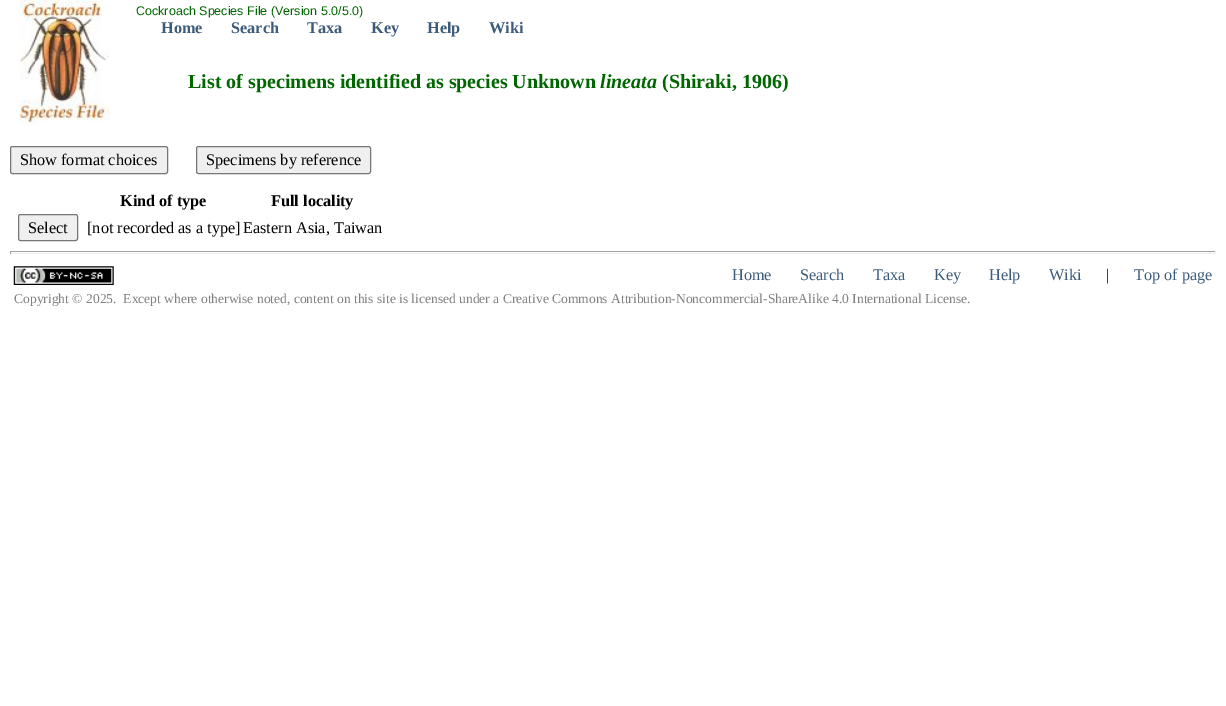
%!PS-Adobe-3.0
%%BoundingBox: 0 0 1226 706
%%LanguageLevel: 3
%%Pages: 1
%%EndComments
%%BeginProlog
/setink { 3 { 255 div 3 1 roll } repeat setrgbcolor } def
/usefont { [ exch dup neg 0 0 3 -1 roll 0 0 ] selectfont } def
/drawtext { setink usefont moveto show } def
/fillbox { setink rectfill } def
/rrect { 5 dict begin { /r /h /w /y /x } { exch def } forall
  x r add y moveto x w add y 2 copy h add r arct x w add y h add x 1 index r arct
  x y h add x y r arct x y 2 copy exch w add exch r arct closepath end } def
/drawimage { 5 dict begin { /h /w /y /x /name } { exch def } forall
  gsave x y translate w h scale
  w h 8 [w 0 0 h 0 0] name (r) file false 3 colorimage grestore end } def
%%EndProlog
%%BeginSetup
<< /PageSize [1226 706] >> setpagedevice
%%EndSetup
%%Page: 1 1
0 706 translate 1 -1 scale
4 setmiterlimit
0 0 1226 706 255 255 255 fillbox
(assets/img1.rgb) 19 0 91 124 drawimage
(Cockroach Species File \(Version 5.0/5.0\)) 136 15 /LiberationSans-Regular 12.5 0 102 0 drawtext
(Home) 161 33 /LiberationSerif-Bold 16.25 61 91 123 drawtext
(Search) 231 33 /LiberationSerif-Bold 16.25 61 91 123 drawtext
(Taxa) 307 33 /LiberationSerif-Bold 16.25 61 91 123 drawtext
(Key) 371 33 /LiberationSerif-Bold 16.25 61 91 123 drawtext
(Help) 427 33 /LiberationSerif-Bold 16.25 61 91 123 drawtext
(Wiki) 489 33 /LiberationSerif-Bold 16.25 61 91 123 drawtext
(List of specimens identified as species Unknown) 188 88 /LiberationSerif-Bold 20 0 102 0 drawtext
(lineata) 600 88 /LiberationSerif-BoldItalic 20 0 102 0 drawtext
(\(Shiraki, 1906\)) 662 88 /LiberationSerif-Bold 20 0 102 0 drawtext
239 239 239 setink
10.5 146.5 157 27 2 rrect gsave fill grestore
118 118 118 setink
stroke
(Show format choices) 20 165 /LiberationSerif-Regular 16.25 0 0 0 drawtext
239 239 239 setink
196.5 146.5 174 27 2 rrect gsave fill grestore
118 118 118 setink
stroke
(Specimens by reference) 206 165 /LiberationSerif-Regular 16.25 0 0 0 drawtext
(Kind of type) 120 206 /LiberationSerif-Bold 16.25 0 0 0 drawtext
(Full locality) 271 206 /LiberationSerif-Bold 16.25 0 0 0 drawtext
239 239 239 setink
18.5 214.5 59 26 2 rrect gsave fill grestore
118 118 118 setink
stroke
(Select) 28 233 /LiberationSerif-Regular 16.25 0 0 0 drawtext
([not recorded as a type]) 87 233 /LiberationSerif-Regular 16.25 0 0 0 drawtext
(Eastern Asia, Taiwan) 243 233 /LiberationSerif-Regular 16.25 0 0 0 drawtext
10 251 1206 1 159 159 159 fillbox
1215 251 1 3 238 238 238 fillbox
10 253 1206 1 238 238 238 fillbox
10 251 1 3 159 159 159 fillbox
(assets/img2.rgb) 13 266 101 19 drawimage
(Home) 732 280 /LiberationSerif-Regular 16.25 61 91 123 drawtext
(Search) 800 280 /LiberationSerif-Regular 16.25 61 91 123 drawtext
(Taxa) 873 280 /LiberationSerif-Regular 16.25 61 91 123 drawtext
(Key) 934 280 /LiberationSerif-Regular 16.25 61 91 123 drawtext
(Help) 989 280 /LiberationSerif-Regular 16.25 61 91 123 drawtext
(Wiki) 1049 280 /LiberationSerif-Regular 16.25 61 91 123 drawtext
(|) 1106 280 /LiberationSerif-Regular 16.25 0 0 0 drawtext
(Top of page) 1134 280 /LiberationSerif-Regular 16.25 61 91 123 drawtext
(Copyright © 2025.  Except where otherwise noted, content on this site is licensed under a Creative Commons Attribution-Noncommercial-ShareAlike 4.0 International License.) 14 303 /LiberationSerif-Regular 13.55 128 128 128 drawtext
showpage
%%EOF
